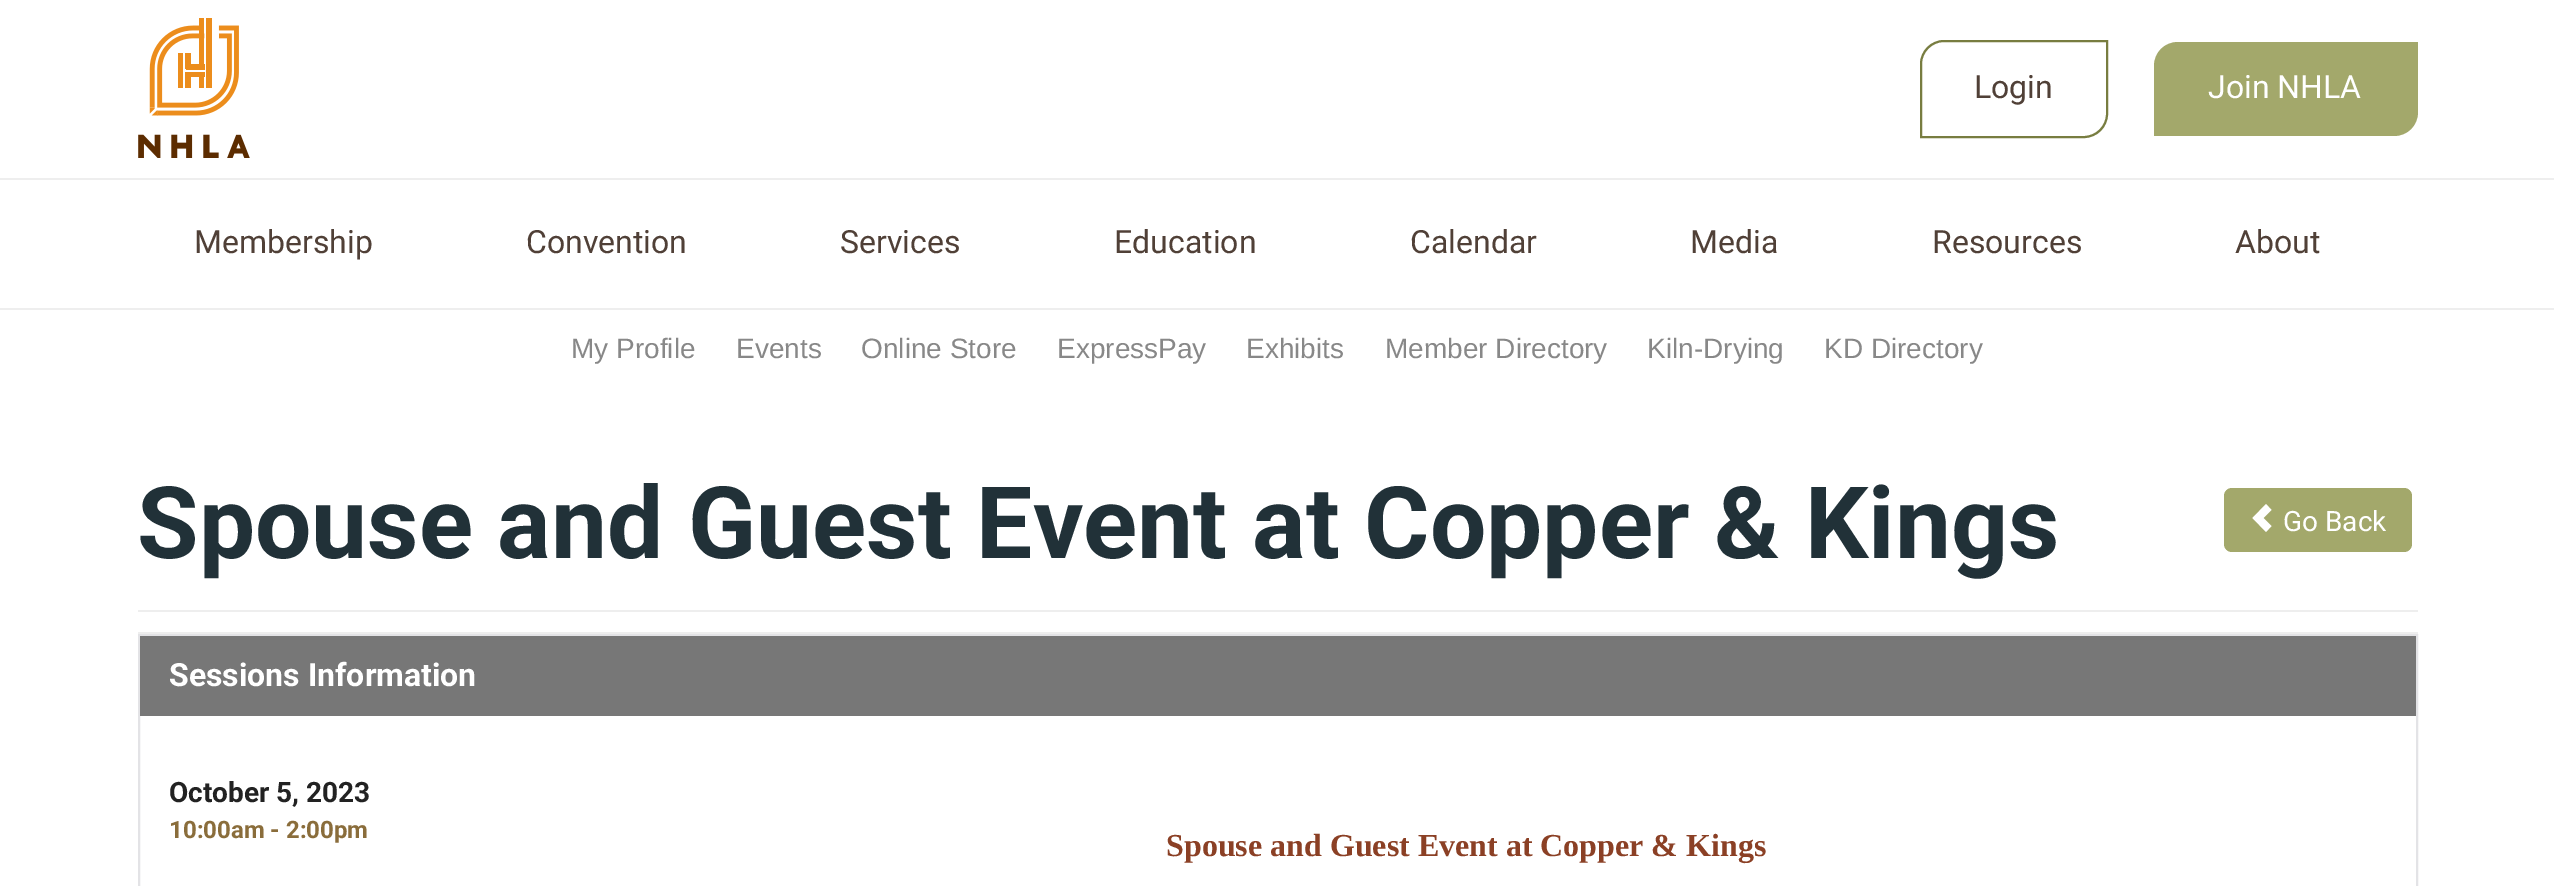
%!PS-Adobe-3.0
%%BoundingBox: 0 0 2554 886
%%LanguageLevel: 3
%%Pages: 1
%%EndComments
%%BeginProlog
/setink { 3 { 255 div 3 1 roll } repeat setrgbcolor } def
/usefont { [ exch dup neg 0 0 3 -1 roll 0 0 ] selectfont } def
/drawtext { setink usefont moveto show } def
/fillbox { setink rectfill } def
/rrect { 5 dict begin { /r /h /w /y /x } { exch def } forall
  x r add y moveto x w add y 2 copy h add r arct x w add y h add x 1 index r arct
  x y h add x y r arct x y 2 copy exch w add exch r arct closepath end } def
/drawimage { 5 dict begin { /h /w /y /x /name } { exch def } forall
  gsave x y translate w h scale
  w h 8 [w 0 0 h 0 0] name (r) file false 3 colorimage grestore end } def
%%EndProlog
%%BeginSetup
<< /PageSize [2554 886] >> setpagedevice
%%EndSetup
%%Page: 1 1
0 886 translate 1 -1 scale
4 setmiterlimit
0 0 2554 886 255 255 255 fillbox
0 178 2554 2 238 238 238 fillbox
(assets/img1.rgb) 138 18 112 140 drawimage
120 125 64 setink
2 setlinewidth
1944 41 moveto 2107 41 lineto 2107 114 lineto 2107 126.5 2096.5 137 2084 137 curveto 1921 137 lineto 1921 64 lineto 1921 51.5 1931.5 41 1944 41 curveto closepath stroke
(Login) 1974 98 /Roboto-Regular 32 80 64 55 drawtext
163 168 107 setink
2178 42 moveto 2418 42 lineto 2418 112 lineto 2418 125.5 2407.5 136 2394 136 curveto 2154 136 lineto 2154 66 lineto 2154 52.5 2164.5 42 2178 42 curveto closepath fill
(Join NHLA) 2208 98 /Roboto-Regular 32 255 255 255 drawtext
0 308 2554 2 238 238 238 fillbox
(Membership) 194 253 /Roboto-Regular 32 80 64 55 drawtext
(Convention) 526 253 /Roboto-Regular 32 80 64 55 drawtext
(Services) 840 253 /Roboto-Regular 32 80 64 55 drawtext
(Education) 1114 253 /Roboto-Regular 32 80 64 55 drawtext
(Calendar) 1410 253 /Roboto-Regular 32 80 64 55 drawtext
(Media) 1690 253 /Roboto-Regular 32 80 64 55 drawtext
(Resources) 1932 253 /Roboto-Regular 32 80 64 55 drawtext
(About) 2235 253 /Roboto-Regular 32 80 64 55 drawtext
(My Profile) 571 358 /LiberationSans-Regular 28 136 136 136 drawtext
(Events) 736 358 /LiberationSans-Regular 28 136 136 136 drawtext
(Online Store) 861 358 /LiberationSans-Regular 28 136 136 136 drawtext
(ExpressPay) 1057 358 /LiberationSans-Regular 28 136 136 136 drawtext
(Exhibits) 1246 358 /LiberationSans-Regular 28 136 136 136 drawtext
(Member Directory) 1385 358 /LiberationSans-Regular 28 136 136 136 drawtext
(Kiln-Drying) 1647 358 /LiberationSans-Regular 28 136 136 136 drawtext
(KD Directory) 1824 358 /LiberationSans-Regular 28 136 136 136 drawtext
138 632 2280 2 238 238 238 fillbox
138 610 2280 2 238 238 238 fillbox
(Spouse and Guest Event at Copper & Kings) 137 558 /Roboto-Bold 100 33 49 56 drawtext
163 168 107 setink
2224 488 188 64 8 rrect fill
255 255 255 setink
2252.5 518 moveto 2266 532 lineto 2271.5 526 lineto 2263.5 518 lineto 2271.5 510 lineto 2266 504 lineto closepath fill
(Go Back) 2283 531 /Roboto-Regular 28 255 255 255 drawtext
227 227 230 setink
139 635 2278 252 rectstroke
140 636 2276 80 119 119 119 fillbox
(Sessions Information) 169 686 /Roboto-Bold 32 255 255 255 drawtext
(October 5, 2023) 169 802 /Roboto-Bold 28 34 34 34 drawtext
(10:00am - 2:00pm) 169 838 /Roboto-Bold 24 138 109 59 drawtext
(Spouse and Guest Event at Copper & Kings) 1166 856 /LiberationSerif-Bold 32 139 64 37 drawtext
showpage
%%EOF
